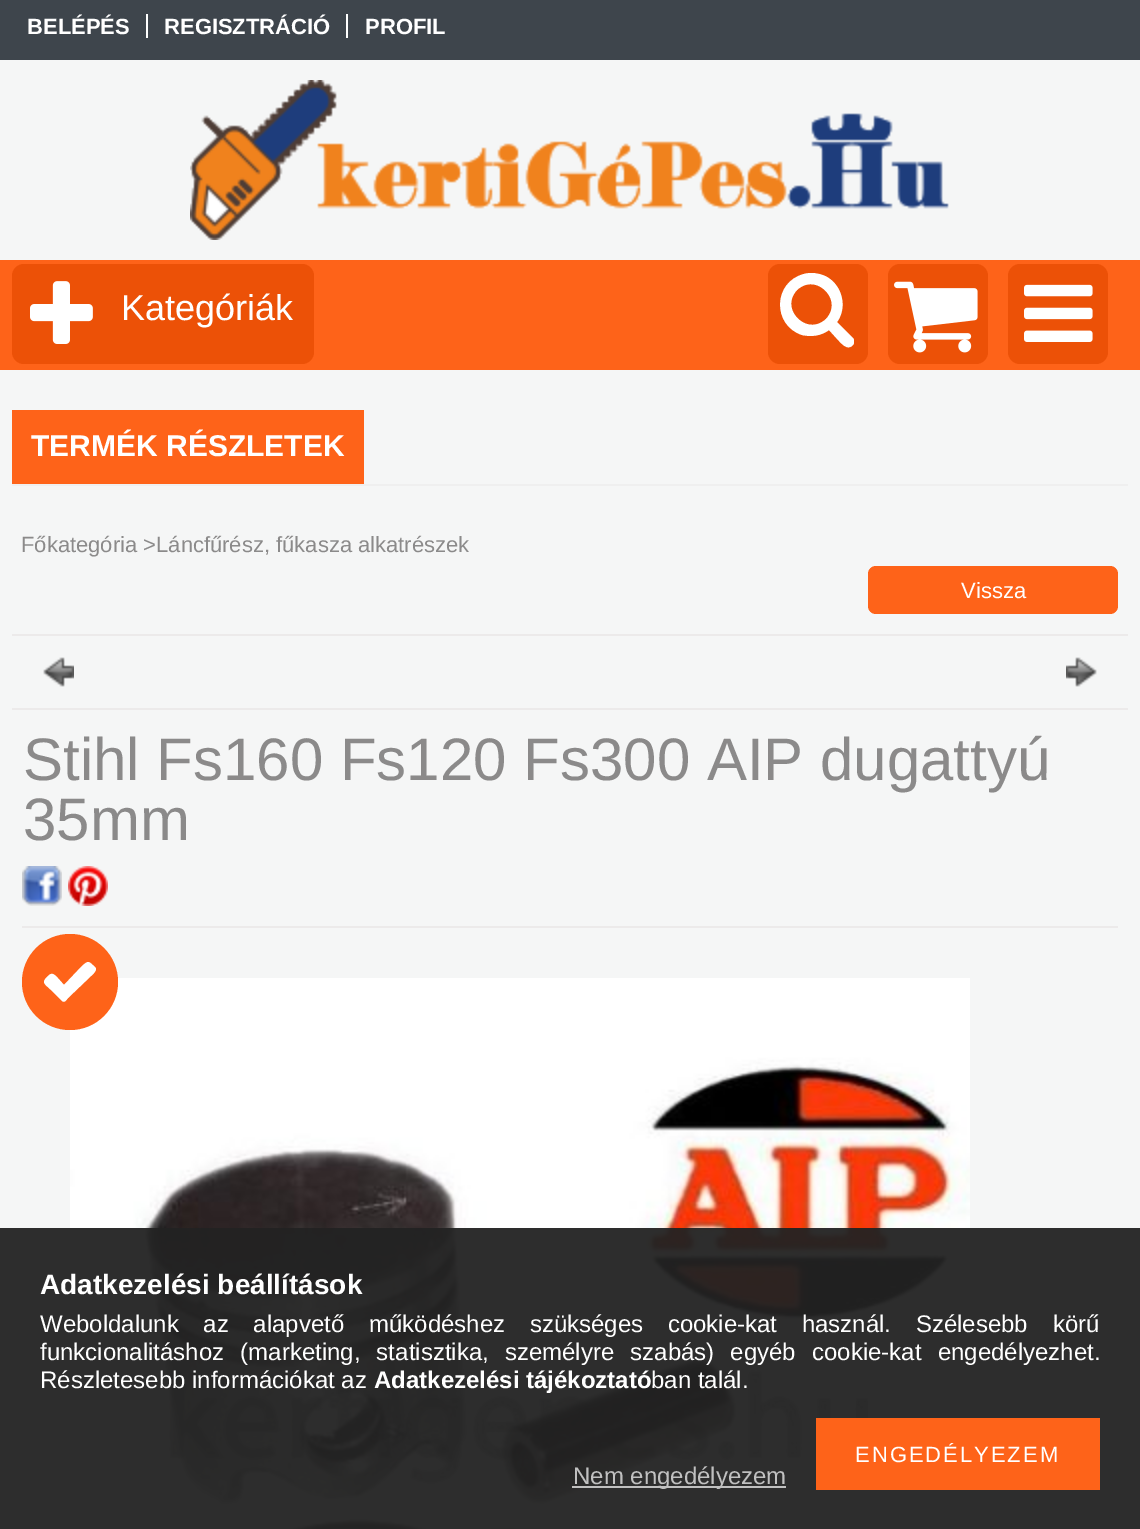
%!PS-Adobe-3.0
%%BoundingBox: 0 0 1140 1529
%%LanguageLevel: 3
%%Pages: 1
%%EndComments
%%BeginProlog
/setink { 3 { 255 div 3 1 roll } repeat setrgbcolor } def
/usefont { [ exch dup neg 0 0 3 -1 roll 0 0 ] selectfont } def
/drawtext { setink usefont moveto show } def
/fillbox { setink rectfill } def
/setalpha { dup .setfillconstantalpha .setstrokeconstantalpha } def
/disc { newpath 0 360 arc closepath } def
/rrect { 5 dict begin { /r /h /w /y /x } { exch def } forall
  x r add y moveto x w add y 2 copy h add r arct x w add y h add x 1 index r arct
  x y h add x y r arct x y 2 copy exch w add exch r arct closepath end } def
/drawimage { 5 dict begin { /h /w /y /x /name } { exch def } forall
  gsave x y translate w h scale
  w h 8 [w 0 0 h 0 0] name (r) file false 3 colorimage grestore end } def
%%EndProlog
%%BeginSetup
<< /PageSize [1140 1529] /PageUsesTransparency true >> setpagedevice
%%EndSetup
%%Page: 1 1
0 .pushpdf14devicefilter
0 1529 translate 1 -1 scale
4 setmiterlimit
0 0 1140 1529 245 246 246 fillbox
0 0 1140 60 62 69 76 fillbox
(BELÉPÉS) 27 34 /LiberationSans-Bold 22 255 255 255 drawtext
146 14 2 24 255 255 255 fillbox
(REGISZTRÁCIÓ) 164 34 /LiberationSans-Bold 22 255 255 255 drawtext
346 14 2 24 255 255 255 fillbox
(PROFIL) 365 34 /LiberationSans-Bold 22 255 255 255 drawtext
(assets/img1.rgb) 190 80 759 160 drawimage
0 260 1140 110 254 99 25 fillbox
236 81 7 setink
12 264 302 100 12 rrect fill
(assets/img2.rgb) 30 281 63 63 drawimage
(Kategóriák) 121 320 /LiberationSans-Regular 36 255 255 255 drawtext
236 81 7 setink
768 264 100 100 12 rrect fill
255 255 255 setink
826 319 moveto 844 300 816 272 797 290 curveto 779 309 807 337 826 319 curveto closepath 854 342 moveto 854 344 853 345 852 346 curveto 847 350 842 344 839 341 curveto 829 330 lineto 821 336 811 337 802 335 curveto 772 325 773 282 804 274 curveto 811 272 818 273 825 276 curveto 842 284 848 307 837 322 curveto 853 338 lineto 854 339 854 340 854 342 curveto closepath fill
236 81 7 setink
888 264 100 100 12 rrect fill
(assets/img3.rgb) 894 281 84 72 drawimage
1008 264 100 100 12 rrect fill
(assets/img4.rgb) 1024 284 69 58 drawimage
12 484 1116 2 239 239 239 fillbox
12 410 352 74 254 99 25 fillbox
(TERMÉK RÉSZLETEK) 31 456 /LiberationSans-Bold 30 255 255 255 drawtext
(Főkategória >Láncfűrész, fűkasza alkatrészek) 21 552 /LiberationSans-Regular 22 139 138 138 drawtext
254 99 25 setink
868 566 250 48 8 rrect fill
(Vissza) 961 598 /LiberationSans-Regular 22 255 255 255 drawtext
12 634 1116 2 236 234 234 fillbox
(assets/img5.rgb) 43 657 31 30 drawimage
(assets/img6.rgb) 1066 657 31 30 drawimage
12 708 1116 2 236 234 234 fillbox
22 926 1096 2 236 234 234 fillbox
(Stihl Fs160 Fs120 Fs300 AIP dugattyú) 23 780 /LiberationSans-Regular 60 139 138 138 drawtext
(35mm) 23 840 /LiberationSans-Regular 60 139 138 138 drawtext
(assets/img7.rgb) 22 866 40 40 drawimage
(assets/img8.rgb) 68 866 40 40 drawimage
(assets/img9.rgb) 70 978 900 551 drawimage
254 99 25 setink
70 982 48 disc fill
255 255 255 setink
95 967 moveto 98 970 93 974 91 976 curveto 68 998 lineto 64 1003 64 1003 59 998 curveto 51 990 lineto 45 984 41 983 47 977 curveto 51 973 52 973 56 976 curveto 64 985 lineto 82 966 lineto 89 960 88 961 95 967 curveto closepath fill
0.95 setalpha
0 1228 1140 301 34 34 34 fillbox
1 setalpha
(Adatkezelési beállítások) 40 1294 /LiberationSans-Bold 28 255 255 255 drawtext
/LiberationSans-Regular 24 usefont
40 1332 moveto 18 0 32 (Weboldalunk az alapvető működéshez szükséges cookie-kat használ. Szélesebb körű) widthshow
40 1360 moveto 9.5 0 32 (funkcionalitáshoz \(marketing, statisztika, személyre szabás\) egyéb cookie-kat engedélyezhet.) widthshow
(Részletesebb információkat az) 40 1388 /LiberationSans-Regular 24 255 255 255 drawtext
(Adatkezelési tájékoztató) 374 1388 /LiberationSans-Bold 24 255 255 255 drawtext
(ban talál.) 651 1388 /LiberationSans-Regular 24 255 255 255 drawtext
816 1418 284 72 254 99 25 fillbox
/LiberationSans-Regular 22 usefont
255 255 255 setink
855 1462 moveto 2 0 (ENGEDÉLYEZEM) ashow
0.7 setalpha
572 1486 214 2 255 255 255 fillbox
1 setalpha
(Nem engedélyezem) 573 1484 /LiberationSans-Regular 24 192 192 192 drawtext
.poppdf14devicefilter showpage
%%EOF
